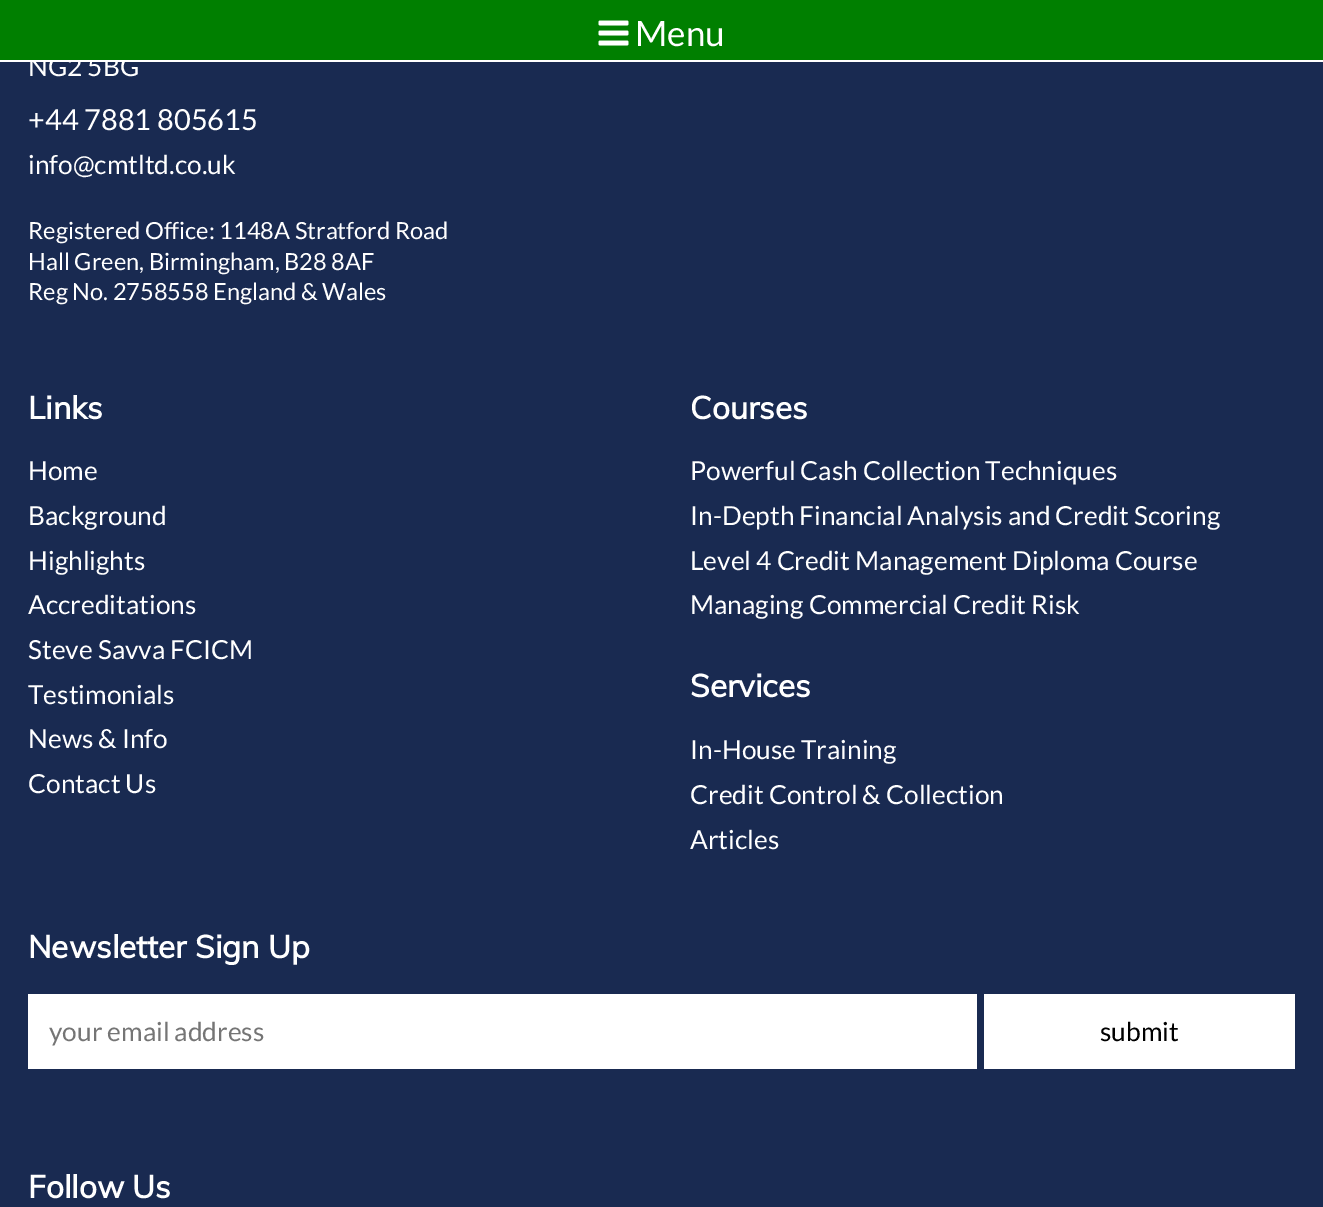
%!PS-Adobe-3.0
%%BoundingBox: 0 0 1323 1207
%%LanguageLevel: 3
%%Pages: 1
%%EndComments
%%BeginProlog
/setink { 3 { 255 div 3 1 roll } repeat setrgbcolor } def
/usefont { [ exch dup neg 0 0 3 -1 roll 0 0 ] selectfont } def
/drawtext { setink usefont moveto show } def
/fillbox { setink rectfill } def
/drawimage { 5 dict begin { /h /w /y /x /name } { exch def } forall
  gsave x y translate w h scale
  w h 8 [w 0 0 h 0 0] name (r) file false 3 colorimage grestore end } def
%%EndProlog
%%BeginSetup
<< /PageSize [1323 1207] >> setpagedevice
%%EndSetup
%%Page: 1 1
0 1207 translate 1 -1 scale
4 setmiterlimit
0 0 1323 1207 25 42 81 fillbox
(NG2 5BG) 28 76 /Lato-Regular 26.25 255 255 255 drawtext
0 0 1323 60 0 127 0 fillbox
0 60 1323 2 255 255 255 fillbox
(assets/img1.rgb) 598 20 31 26 drawimage
(Menu) 635 46 /Lato-Regular 35 255 255 255 drawtext
(+44 7881 805615) 28 130 /Lato-Regular 29 255 255 255 drawtext
(info@cmtltd.co.uk) 28 174 /Lato-Regular 26.25 255 255 255 drawtext
(Registered Office: 1148A Stratford Road) 28 239 /Lato-Regular 23.6 255 255 255 drawtext
(Hall Green, Birmingham, B28 8AF) 28 270 /Lato-Regular 23.6 255 255 255 drawtext
(Reg No. 2758558 England & Wales) 28 300 /Lato-Regular 23.6 255 255 255 drawtext
(Links) 28 419 /Muli-Bold 31.5 255 255 255 drawtext
(Home) 28 480 /Lato-Regular 26.25 255 255 255 drawtext
(Background) 28 525 /Lato-Regular 26.25 255 255 255 drawtext
(Highlights) 28 570 /Lato-Regular 26.25 255 255 255 drawtext
(Accreditations) 28 614 /Lato-Regular 26.25 255 255 255 drawtext
(Steve Savva FCICM) 28 659 /Lato-Regular 26.25 255 255 255 drawtext
(Testimonials) 28 704 /Lato-Regular 26.25 255 255 255 drawtext
(News & Info) 28 748 /Lato-Regular 26.25 255 255 255 drawtext
(Contact Us) 28 793 /Lato-Regular 26.25 255 255 255 drawtext
(Courses) 690 419 /Muli-Bold 31.5 255 255 255 drawtext
(Powerful Cash Collection Techniques) 690 480 /Lato-Regular 26.25 255 255 255 drawtext
(In-Depth Financial Analysis and Credit Scoring) 690 525 /Lato-Regular 26.25 255 255 255 drawtext
(Level 4 Credit Management Diploma Course) 690 570 /Lato-Regular 26.25 255 255 255 drawtext
(Managing Commercial Credit Risk) 690 614 /Lato-Regular 26.25 255 255 255 drawtext
(Services) 690 697 /Muli-Bold 31.5 255 255 255 drawtext
(In-House Training) 690 759 /Lato-Regular 26.25 255 255 255 drawtext
(Credit Control & Collection) 690 804 /Lato-Regular 26.25 255 255 255 drawtext
(Articles) 690 849 /Lato-Regular 26.25 255 255 255 drawtext
(Newsletter Sign Up) 28 958 /Muli-Bold 31.5 255 255 255 drawtext
28 994 949 75 255 255 255 fillbox
(your email address) 49 1041 /Lato-Regular 26.25 117 117 117 drawtext
984 994 311 75 255 255 255 fillbox
(submit) 1100 1041 /Lato-Regular 26.25 0 0 0 drawtext
(Follow Us) 28 1198 /Muli-Bold 31.5 255 255 255 drawtext
showpage
%%EOF
